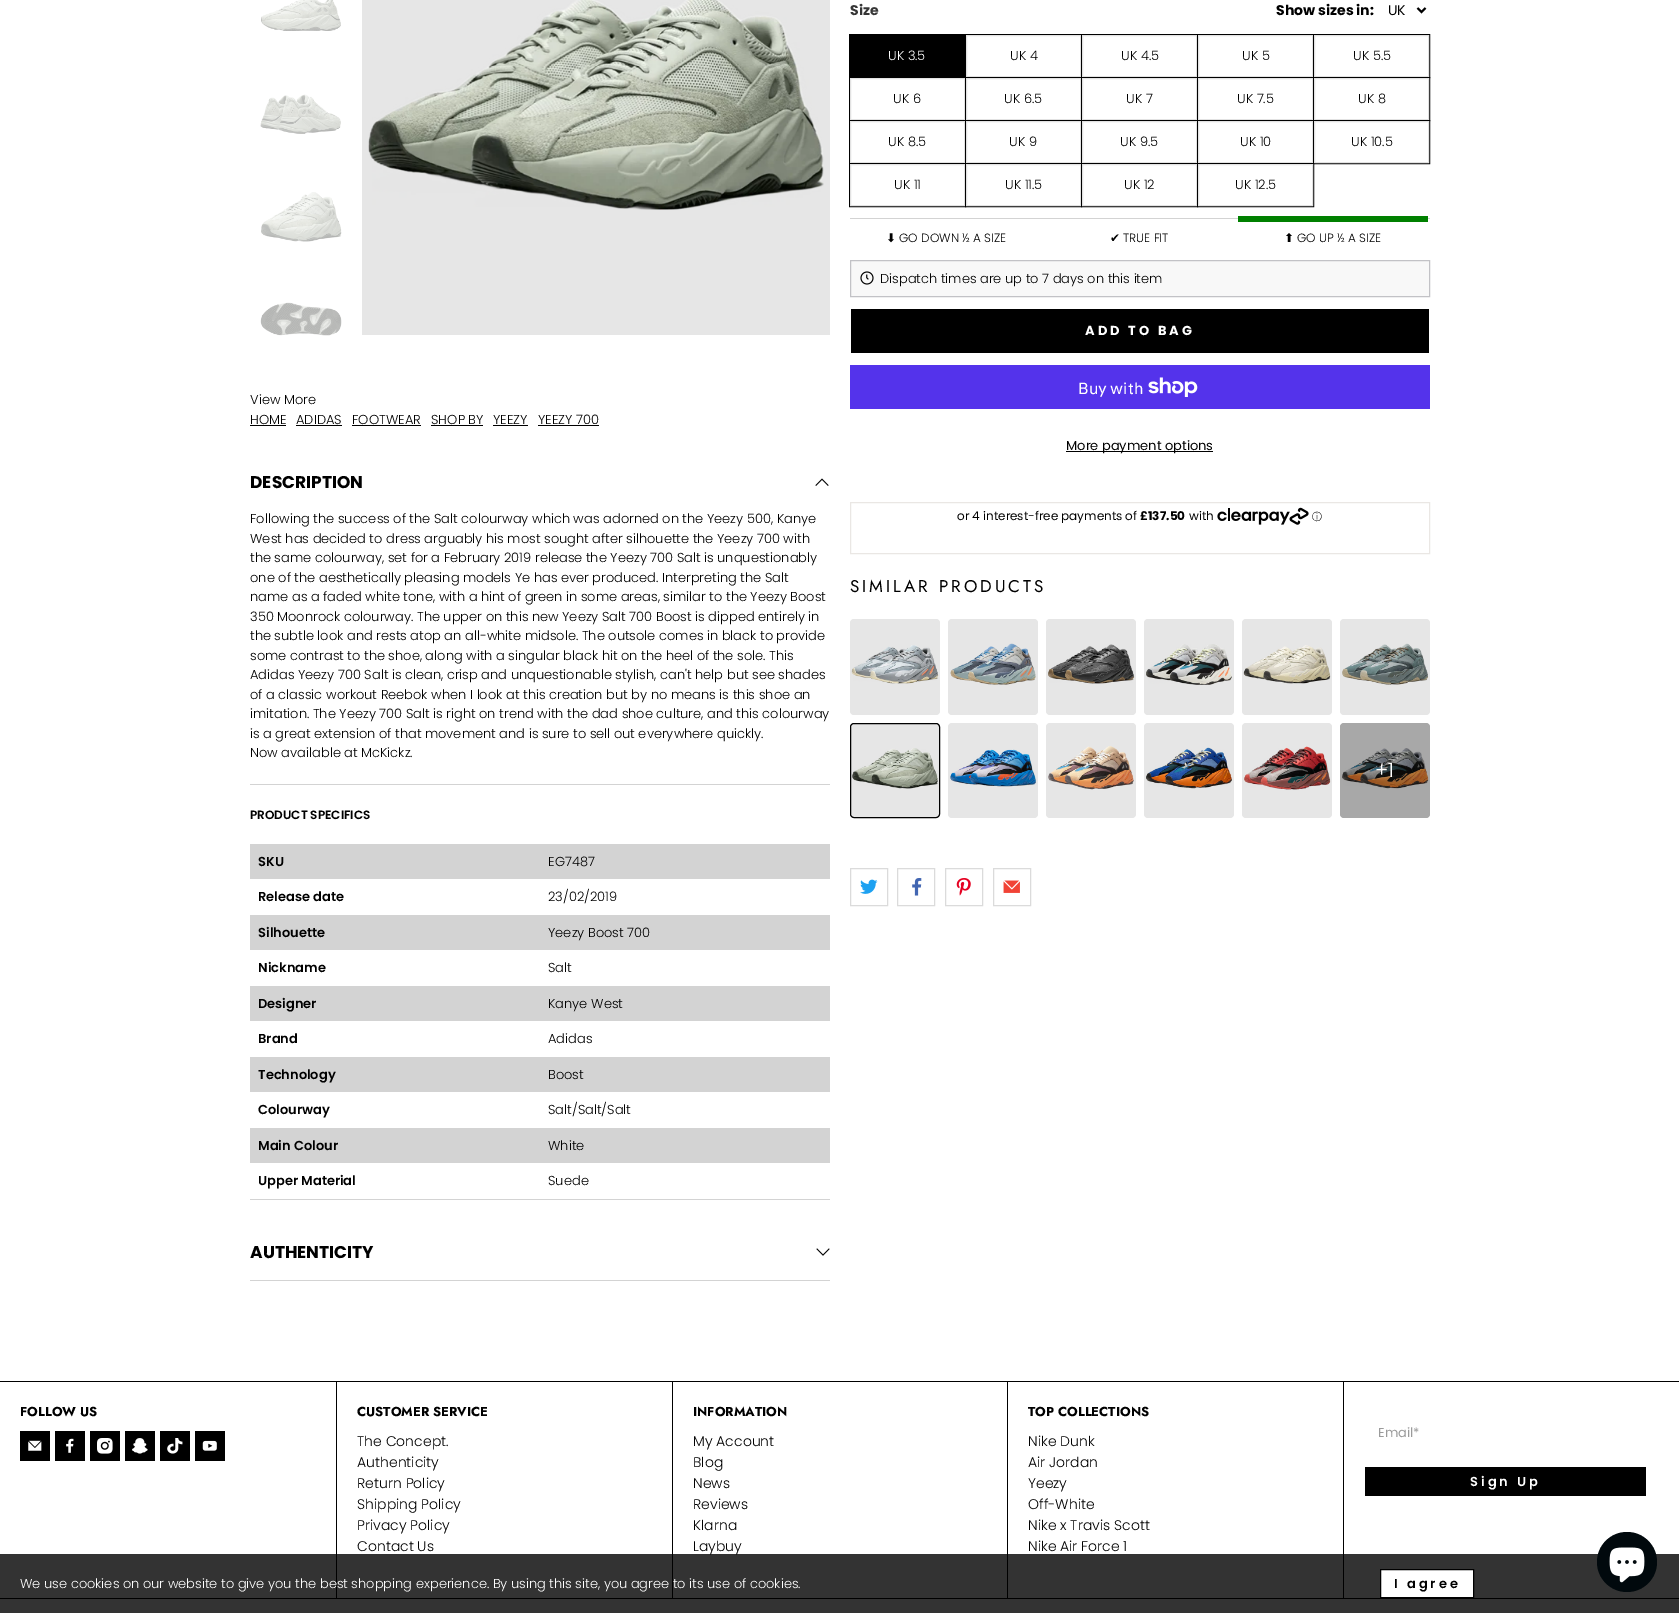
%!PS-Adobe-3.0
%%BoundingBox: 0 0 1679 1613
%%LanguageLevel: 3
%%Pages: 1
%%EndComments
%%BeginProlog
/setink { 3 { 255 div 3 1 roll } repeat setrgbcolor } def
/usefont { [ exch dup neg 0 0 3 -1 roll 0 0 ] selectfont } def
/drawtext { setink usefont moveto show } def
/fillbox { setink rectfill } def
/setalpha { dup .setfillconstantalpha .setstrokeconstantalpha } def
/disc { newpath 0 360 arc closepath } def
/rrect { 5 dict begin { /r /h /w /y /x } { exch def } forall
  x r add y moveto x w add y 2 copy h add r arct x w add y h add x 1 index r arct
  x y h add x y r arct x y 2 copy exch w add exch r arct closepath end } def
/drawimage { 5 dict begin { /h /w /y /x /name } { exch def } forall
  gsave x y translate w h scale
  w h 8 [w 0 0 h 0 0] name (r) file false 3 colorimage grestore end } def
%%EndProlog
%%BeginSetup
<< /PageSize [1679 1613] /PageUsesTransparency true >> setpagedevice
%%EndSetup
%%Page: 1 1
0 .pushpdf14devicefilter
0 1613 translate 1 -1 scale
4 setmiterlimit
0 0 1679 1613 255 255 255 fillbox
(assets/img1.rgb) 261 0 80 31 drawimage
(assets/img2.rgb) 260 94 81 40 drawimage
(assets/img3.rgb) 261 192 81 50 drawimage
(assets/img4.rgb) 260 302 82 34 drawimage
362 0 468 335 230 230 230 fillbox
(assets/img5.rgb) 368 0 456 210 drawimage
(View More) 250 404 /Poppins-Light 13 0 0 0 drawtext
(HOME) 250 424 /Poppins-Light 13 0 0 0 drawtext
250 425 36 1 0 0 0 fillbox
(ADIDAS) 296 424 /Poppins-Light 13 0 0 0 drawtext
296 425 46 1 0 0 0 fillbox
(FOOTWEAR) 352 424 /Poppins-Light 13 0 0 0 drawtext
352 425 69 1 0 0 0 fillbox
(SHOP BY) 431 424 /Poppins-Light 13 0 0 0 drawtext
431 425 52 1 0 0 0 fillbox
(YEEZY) 493 424 /Poppins-Light 13 0 0 0 drawtext
493 425 35 1 0 0 0 fillbox
(YEEZY 700) 538 424 /Poppins-Light 13 0 0 0 drawtext
538 425 61 1 0 0 0 fillbox
250 784 580 1 211 211 211 fillbox
(DESCRIPTION) 250 488 /Poppins-Bold 17 0 0 0 drawtext
(assets/img6.rgb) 815 478 14 8 drawimage
(Following the success of the Salt colourway which was adorned on the Yeezy 500, Kanye) 250 523 /Poppins-Light 13 0 0 0 drawtext
(West has decided to dress arguably his most sought after silhouette the Yeezy 700 with) 250 543 /Poppins-Light 13 0 0 0 drawtext
(the same colourway, set for a February 2019 release the Yeezy 700 Salt is unquestionably) 250 562 /Poppins-Light 13 0 0 0 drawtext
(one of the aesthetically pleasing models Ye has ever produced. Interpreting the Salt) 250 582 /Poppins-Light 13 0 0 0 drawtext
(name as a faded white tone, with a hint of green in some areas, similar to the Yeezy Boost) 250 601 /Poppins-Light 13 0 0 0 drawtext
(350 Moonrock colourway. The upper on this new Yeezy Salt 700 Boost is dipped entirely in) 250 621 /Poppins-Light 13 0 0 0 drawtext
(the subtle look and rests atop an all-white midsole. The outsole comes in black to provide) 250 640 /Poppins-Light 13 0 0 0 drawtext
(some contrast to the shoe, along with a singular black hit on the heel of the sole. This) 250 660 /Poppins-Light 13 0 0 0 drawtext
(Adidas Yeezy 700 Salt is clean, crisp and unquestionable stylish, can't help but see shades) 250 679 /Poppins-Light 13 0 0 0 drawtext
(of a classic workout Reebok when I look at this creation but by no means is this shoe an) 250 699 /Poppins-Light 13 0 0 0 drawtext
(imitation. The Yeezy 700 Salt is right on trend with the dad shoe culture, and this colourway) 250 718 /Poppins-Light 13 0 0 0 drawtext
(is a great extension of that movement and is sure to sell out everywhere quickly.) 250 738 /Poppins-Light 13 0 0 0 drawtext
(Now available at McKickz.) 250 757 /Poppins-Light 13 0 0 0 drawtext
(PRODUCT SPECIFICS) 250 819 /Poppins-SemiBold 12 0 0 0 drawtext
250 1199 580 1 211 211 211 fillbox
250 844 580 35 211 211 211 fillbox
(SKU) 258 866 /Poppins-SemiBold 13 0 0 0 drawtext
(EG7487) 548 866 /Poppins-Light 13 0 0 0 drawtext
(Release date) 258 901 /Poppins-SemiBold 13 0 0 0 drawtext
(23/02/2019) 548 901 /Poppins-Light 13 0 0 0 drawtext
250 915 580 35 211 211 211 fillbox
(Silhouette) 258 937 /Poppins-SemiBold 13 0 0 0 drawtext
(Yeezy Boost 700) 548 937 /Poppins-Light 13 0 0 0 drawtext
(Nickname) 258 972 /Poppins-SemiBold 13 0 0 0 drawtext
(Salt) 548 972 /Poppins-Light 13 0 0 0 drawtext
250 986 580 35 211 211 211 fillbox
(Designer) 258 1008 /Poppins-SemiBold 13 0 0 0 drawtext
(Kanye West) 548 1008 /Poppins-Light 13 0 0 0 drawtext
(Brand) 258 1043 /Poppins-SemiBold 13 0 0 0 drawtext
(Adidas) 548 1043 /Poppins-Light 13 0 0 0 drawtext
250 1057 580 35 211 211 211 fillbox
(Technology) 258 1079 /Poppins-SemiBold 13 0 0 0 drawtext
(Boost) 548 1079 /Poppins-Light 13 0 0 0 drawtext
(Colourway) 258 1114 /Poppins-SemiBold 13 0 0 0 drawtext
(Salt/Salt/Salt) 548 1114 /Poppins-Light 13 0 0 0 drawtext
250 1128 580 35 211 211 211 fillbox
(Main Colour) 258 1150 /Poppins-SemiBold 13 0 0 0 drawtext
(White) 548 1150 /Poppins-Light 13 0 0 0 drawtext
(Upper Material) 258 1185 /Poppins-SemiBold 13 0 0 0 drawtext
(Suede) 548 1185 /Poppins-Light 13 0 0 0 drawtext
250 1280 580 1 211 211 211 fillbox
(AUTHENTICITY) 250 1258 /Poppins-Bold 17 0 0 0 drawtext
(assets/img7.rgb) 816 1248 14 8 drawimage
(Size) 850 15 /Poppins-Bold 14 54 54 54 drawtext
(Show sizes in:) 1276 15 /Poppins-Bold 14 0 0 0 drawtext
2 setlinewidth
1417.5 8 moveto 1421.5 12 lineto 1425.5 8 lineto stroke
(UK) 1388 15 /Poppins-Regular 14 0 0 0 drawtext
1 setlinewidth
849.5 34.5 116 43 rectstroke
850 35 115 42 0 0 0 fillbox
(UK 3.5) 888 60 /Poppins-Light 13 255 255 255 drawtext
0 0 0 setink
965.5 34.5 116 43 rectstroke
226 226 226 setink
966.5 35.5 114 41 rectstroke
(UK 4) 1010 60 /Poppins-Light 13 0 0 0 drawtext
1081.5 34.5 116 43 rectstroke
226 226 226 setink
1082.5 35.5 114 41 rectstroke
(UK 4.5) 1121 60 /Poppins-Light 13 0 0 0 drawtext
1197.5 34.5 116 43 rectstroke
226 226 226 setink
1198.5 35.5 114 41 rectstroke
(UK 5) 1242 60 /Poppins-Light 13 0 0 0 drawtext
1313.5 34.5 116 43 rectstroke
226 226 226 setink
1314.5 35.5 114 41 rectstroke
(UK 5.5) 1353 60 /Poppins-Light 13 0 0 0 drawtext
849.5 77.5 116 43 rectstroke
226 226 226 setink
850.5 78.5 114 41 rectstroke
(UK 6) 893 103 /Poppins-Light 13 0 0 0 drawtext
965.5 77.5 116 43 rectstroke
226 226 226 setink
966.5 78.5 114 41 rectstroke
(UK 6.5) 1004 103 /Poppins-Light 13 0 0 0 drawtext
1081.5 77.5 116 43 rectstroke
226 226 226 setink
1082.5 78.5 114 41 rectstroke
(UK 7) 1126 103 /Poppins-Light 13 0 0 0 drawtext
1197.5 77.5 116 43 rectstroke
226 226 226 setink
1198.5 78.5 114 41 rectstroke
(UK 7.5) 1237 103 /Poppins-Light 13 0 0 0 drawtext
1313.5 77.5 116 43 rectstroke
226 226 226 setink
1314.5 78.5 114 41 rectstroke
(UK 8) 1358 103 /Poppins-Light 13 0 0 0 drawtext
849.5 120.5 116 43 rectstroke
226 226 226 setink
850.5 121.5 114 41 rectstroke
(UK 8.5) 888 146 /Poppins-Light 13 0 0 0 drawtext
965.5 120.5 116 43 rectstroke
226 226 226 setink
966.5 121.5 114 41 rectstroke
(UK 9) 1009 146 /Poppins-Light 13 0 0 0 drawtext
1081.5 120.5 116 43 rectstroke
226 226 226 setink
1082.5 121.5 114 41 rectstroke
(UK 9.5) 1120 146 /Poppins-Light 13 0 0 0 drawtext
1197.5 120.5 116 43 rectstroke
226 226 226 setink
1198.5 121.5 114 41 rectstroke
(UK 10) 1240 146 /Poppins-Light 13 0 0 0 drawtext
1313.5 120.5 116 43 rectstroke
226 226 226 setink
1314.5 121.5 114 41 rectstroke
(UK 10.5) 1351 146 /Poppins-Light 13 0 0 0 drawtext
849.5 163.5 116 43 rectstroke
226 226 226 setink
850.5 164.5 114 41 rectstroke
(UK 11) 894 189 /Poppins-Light 13 0 0 0 drawtext
965.5 163.5 116 43 rectstroke
226 226 226 setink
966.5 164.5 114 41 rectstroke
(UK 11.5) 1005 189 /Poppins-Light 13 0 0 0 drawtext
1081.5 163.5 116 43 rectstroke
226 226 226 setink
1082.5 164.5 114 41 rectstroke
(UK 12) 1124 189 /Poppins-Light 13 0 0 0 drawtext
1197.5 163.5 116 43 rectstroke
226 226 226 setink
1198.5 164.5 114 41 rectstroke
(UK 12.5) 1235 189 /Poppins-Light 13 0 0 0 drawtext
850 218 580 1 211 211 211 fillbox
(⬇) 886 242 /DejaVuSans-Regular 12 0 0 0 drawtext
(GO DOWN ½ A SIZE) 899 242 /Poppins-Light 12 0 0 0 drawtext
(✔) 1110 242 /DejaVuSans-Regular 12 0 0 0 drawtext
(TRUE FIT) 1123 242 /Poppins-Light 12 0 0 0 drawtext
1238 216 190 6 0 128 0 fillbox
(⬆) 1284 242 /DejaVuSans-Regular 12 0 0 0 drawtext
(GO UP ½ A SIZE) 1297 242 /Poppins-Light 12 0 0 0 drawtext
248 248 248 setink
850.5 260.5 moveto 1429.5 260.5 lineto 1429.5 296.5 lineto 850.5 296.5 lineto closepath gsave fill grestore
194 194 198 setink
stroke
(assets/img8.rgb) 860 271 14 14 drawimage
(Dispatch times are up to 7 days on this item) 880 283 /Poppins-Light 13 0 0 0 drawtext
gsave
850 309 580 44 2 rrect clip newpath
851 309 578 44 0 0 0 fillbox
grestore
/Poppins-Bold 13 usefont
255 255 255 setink
1085 335 moveto 3 0 (ADD TO BAG) ashow
850 365 580 44 84 51 235 fillbox
(Buy with) 1078 394 /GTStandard-Regular 16 255 255 255 drawtext
(assets/img9.rgb) 1148 377 50 20 drawimage
1066 451 147 1 0 0 0 fillbox
(More payment options) 1066 450 /Poppins-Regular 13 0 0 0 drawtext
234 231 228 setink
850.5 502.5 579 51 rectstroke
(or 4 interest-free payments of) 957 520 /Poppins-Regular 12 0 0 0 drawtext
(£137.50) 1140 520 /Poppins-Bold 12 0 0 0 drawtext
(with) 1189 520 /Poppins-Regular 12 0 0 0 drawtext
(assets/img10.rgb) 1217 507 92 18 drawimage
(ⓘ) 1312 520 /WenQuanYiZenHei-Medium 10 0 0 0 drawtext
/Jost-Regular 17 usefont
850 592 moveto 3 0 (SIMILAR PRODUCTS) ashow
230 230 230 setink
850 619 90 96 4 rrect fill
(assets/img11.rgb) 851 645 88 39 drawimage
948 619 90 96 4 rrect fill
(assets/img12.rgb) 950 643 86 42 drawimage
1046 619 90 96 4 rrect fill
(assets/img13.rgb) 1048 644 87 40 drawimage
1144 619 90 96 4 rrect fill
(assets/img14.rgb) 1146 644 86 41 drawimage
1242 619 90 96 4 rrect fill
(assets/img15.rgb) 1243 645 88 39 drawimage
1340 619 90 96 4 rrect fill
(assets/img16.rgb) 1342 643 86 42 drawimage
850.5 723.5 89 94 3.5 rrect gsave fill grestore
0 0 0 setink
stroke
(assets/img17.rgb) 852 748 86 41 drawimage
230 230 230 setink
948 723 90 95 4 rrect fill
(assets/img18.rgb) 950 749 86 38 drawimage
1046 723 90 95 4 rrect fill
(assets/img19.rgb) 1048 746 86 44 drawimage
1144 723 90 95 4 rrect fill
(assets/img20.rgb) 1146 747 86 42 drawimage
1242 723 90 95 4 rrect fill
(assets/img21.rgb) 1244 746 87 44 drawimage
1340 723 90 95 4 rrect fill
(assets/img22.rgb) 1342 748 87 41 drawimage
0.27 setalpha
0 0 0 setink
1340 723 90 95 4 rrect fill
1 setalpha
(+1) 1375 777 /Poppins-Light 20 255 255 255 drawtext
219 219 219 setink
850.5 868.5 37 37 rectstroke
(assets/img23.rgb) 860 879 18 15 drawimage
897.5 868.5 37 37 rectstroke
(assets/img24.rgb) 912 878 10 18 drawimage
945.5 868.5 37 37 rectstroke
(assets/img25.rgb) 956 878 15 18 drawimage
993.5 868.5 37 37 rectstroke
(assets/img26.rgb) 1003 880 17 13 drawimage
0 1381 1679 1 0 0 0 fillbox
0 1598 1679 1 0 0 0 fillbox
(FOLLOW US) 20 1416 /Jost-Bold 13 0 0 0 drawtext
20 1431 30 30 0 0 0 fillbox
(assets/img27.rgb) 28 1440 14 11 drawimage
55 1431 30 30 0 0 0 fillbox
(assets/img28.rgb) 66 1438 8 15 drawimage
90 1431 30 30 0 0 0 fillbox
(assets/img29.rgb) 97 1438 16 16 drawimage
125 1431 30 30 0 0 0 fillbox
(assets/img30.rgb) 132 1438 16 16 drawimage
160 1431 30 30 0 0 0 fillbox
(assets/img31.rgb) 167 1438 16 16 drawimage
195 1431 30 30 0 0 0 fillbox
(assets/img32.rgb) 202 1440 15 11 drawimage
336 1382 1 216 0 0 0 fillbox
(CUSTOMER SERVICE) 357 1416 /Jost-Bold 13 0 0 0 drawtext
(The Concept.) 357 1446 /Poppins-Light 14 0 0 0 drawtext
(Authenticity) 357 1467 /Poppins-Light 14 0 0 0 drawtext
(Return Policy) 357 1488 /Poppins-Light 14 0 0 0 drawtext
(Shipping Policy) 357 1509 /Poppins-Light 14 0 0 0 drawtext
(Privacy Policy) 357 1530 /Poppins-Light 14 0 0 0 drawtext
(Contact Us) 357 1551 /Poppins-Light 14 0 0 0 drawtext
672 1382 1 216 0 0 0 fillbox
(INFORMATION) 693 1416 /Jost-Bold 13 0 0 0 drawtext
(My Account) 693 1446 /Poppins-Light 14 0 0 0 drawtext
(Blog) 693 1467 /Poppins-Light 14 0 0 0 drawtext
(News) 693 1488 /Poppins-Light 14 0 0 0 drawtext
(Reviews) 693 1509 /Poppins-Light 14 0 0 0 drawtext
(Klarna) 693 1530 /Poppins-Light 14 0 0 0 drawtext
(Laybuy) 693 1551 /Poppins-Light 14 0 0 0 drawtext
1007 1382 1 216 0 0 0 fillbox
(TOP COLLECTIONS) 1028 1416 /Jost-Bold 13 0 0 0 drawtext
(Nike Dunk) 1028 1446 /Poppins-Light 14 0 0 0 drawtext
(Air Jordan) 1028 1467 /Poppins-Light 14 0 0 0 drawtext
(Yeezy) 1028 1488 /Poppins-Light 14 0 0 0 drawtext
(Off-White) 1028 1509 /Poppins-Light 14 0 0 0 drawtext
(Nike x Travis Scott) 1028 1530 /Poppins-Light 14 0 0 0 drawtext
(Nike Air Force 1) 1028 1551 /Poppins-Light 14 0 0 0 drawtext
1343 1382 1 216 0 0 0 fillbox
(Email*) 1378 1437 /Poppins-Regular 13 155 155 155 drawtext
1365 1467 281 29 0 0 0 fillbox
/Poppins-SemiBold 13 usefont
255 255 255 setink
1470 1486 moveto 3 0 (Sign Up) ashow
0.8 setalpha
0 1554 1679 59 0 0 0 fillbox
1 setalpha
(We use cookies on our website to give you the best shopping experience. By using this site, you agree to its use of cookies.) 20 1588 /Poppins-Light 13 255 255 255 drawtext
1380.5 1569.5 moveto 1473.5 1569.5 lineto 1473.5 1597.5 lineto 1380.5 1597.5 lineto closepath gsave fill grestore
0 0 0 setink
stroke
/Poppins-SemiBold 13 usefont
1394 1588 moveto 3 0 (I agree) ashow
1 9 13 setink
1627 1562 30 disc fill
(assets/img33.rgb) 1609 1547 36 36 drawimage
.poppdf14devicefilter showpage
%%EOF
